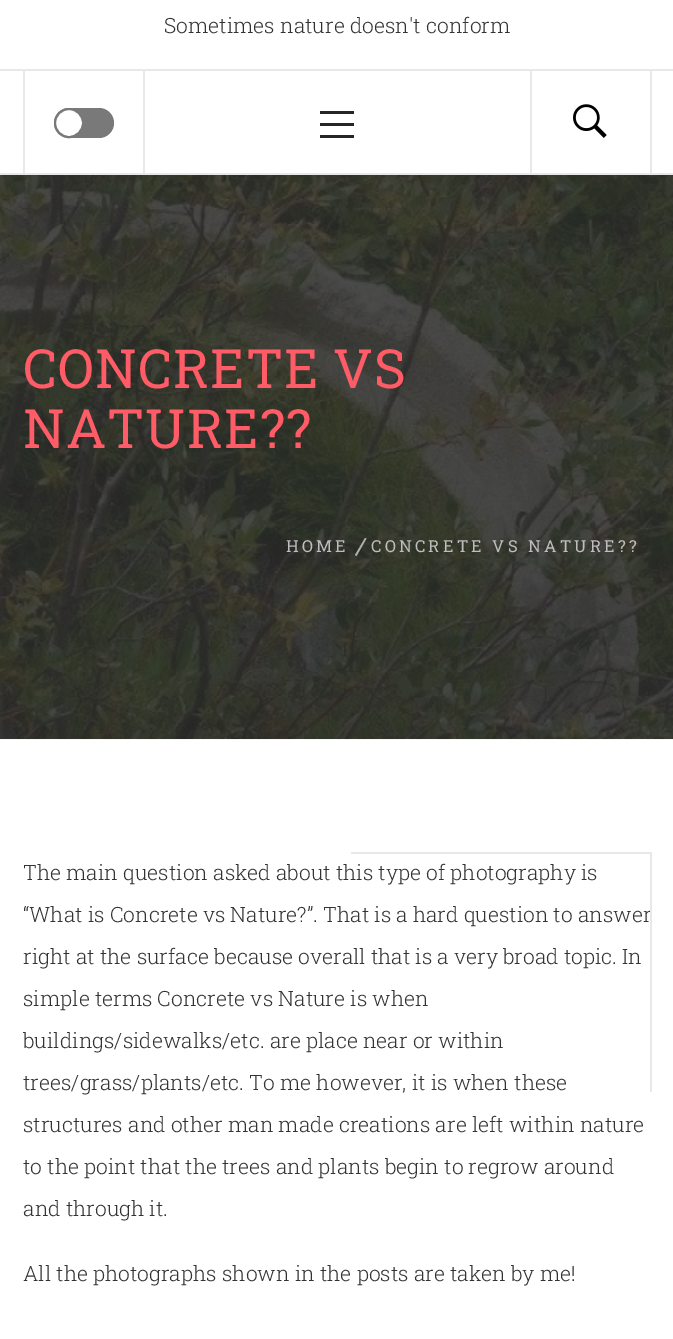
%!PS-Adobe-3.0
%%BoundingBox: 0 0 673 1339
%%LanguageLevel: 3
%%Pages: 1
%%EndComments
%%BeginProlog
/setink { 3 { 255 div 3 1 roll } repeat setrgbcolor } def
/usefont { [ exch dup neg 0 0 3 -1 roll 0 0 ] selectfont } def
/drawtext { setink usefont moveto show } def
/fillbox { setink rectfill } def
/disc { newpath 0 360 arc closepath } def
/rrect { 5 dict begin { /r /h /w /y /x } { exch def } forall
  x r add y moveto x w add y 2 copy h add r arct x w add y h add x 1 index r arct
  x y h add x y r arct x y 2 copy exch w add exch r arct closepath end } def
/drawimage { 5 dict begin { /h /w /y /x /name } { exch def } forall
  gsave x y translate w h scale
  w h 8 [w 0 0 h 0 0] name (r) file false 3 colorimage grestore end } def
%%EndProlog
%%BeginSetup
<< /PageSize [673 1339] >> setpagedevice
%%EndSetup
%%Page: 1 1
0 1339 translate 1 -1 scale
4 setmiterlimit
0 0 673 1339 255 255 255 fillbox
(Sometimes nature doesn't conform) 164 33 /RobotoSlab-Light 21 51 51 51 drawtext
0 69 673 2 232 232 232 fillbox
0 173 673 2 232 232 232 fillbox
650 71 2 102 232 232 232 fillbox
23 71 2 102 232 232 232 fillbox
143 71 2 102 232 232 232 fillbox
121 121 121 setink
54 108 60 30 15 rrect fill
255 255 255 setink
69 123 14 disc gsave fill grestore
121 121 121 setink
2 setlinewidth
stroke
320 123 34 3 37 37 37 fillbox
320 111 34 3 37 37 37 fillbox
320 135 34 3 37 37 37 fillbox
530 71 2 102 232 232 232 fillbox
(assets/img1.rgb) 573 104 34 34 drawimage
0 739 673 1 247 247 247 fillbox
(assets/img2.rgb) 0 175 673 564 drawimage
/RobotoSlab-Regular 54 usefont
255 92 103 setink
23 388 moveto 1 0 (CONCRETE VS) ashow
23 448 moveto 1 0 (NATURE??) ashow
/RobotoSlab-Regular 16.5 usefont
191 189 189 setink
286 552 moveto 3.25 0 (HOME) ashow
175 175 175 setink
365 538 moveto 366.5 538.5 lineto 356.5 556 lineto 355 555 lineto closepath fill
191 189 189 setink
371 552 moveto 3.25 0 (CONCRETE VS NATURE??) ashow
351 852 300 2 232 232 232 fillbox
(“What is Concrete vs Nature?”. That is a hard question to answer) 23 922 /RobotoSlab-Light 21 51 51 51 drawtext
650 852 2 240 232 232 232 fillbox
(The main question asked about this type of photography is) 23 880 /RobotoSlab-Light 21 51 51 51 drawtext
(right at the surface because overall that is a very broad topic. In) 23 964 /RobotoSlab-Light 21 51 51 51 drawtext
(simple terms Concrete vs Nature is when) 23 1006 /RobotoSlab-Light 21 51 51 51 drawtext
(buildings/sidewalks/etc. are place near or within) 23 1048 /RobotoSlab-Light 21 51 51 51 drawtext
(trees/grass/plants/etc. To me however, it is when these) 23 1090 /RobotoSlab-Light 21 51 51 51 drawtext
(structures and other man made creations are left within nature) 23 1132 /RobotoSlab-Light 21 51 51 51 drawtext
(to the point that the trees and plants begin to regrow around) 23 1174 /RobotoSlab-Light 21 51 51 51 drawtext
(and through it.) 23 1216 /RobotoSlab-Light 21 51 51 51 drawtext
(All the photographs shown in the posts are taken by me!) 23 1281 /RobotoSlab-Light 21 51 51 51 drawtext
showpage
%%EOF
